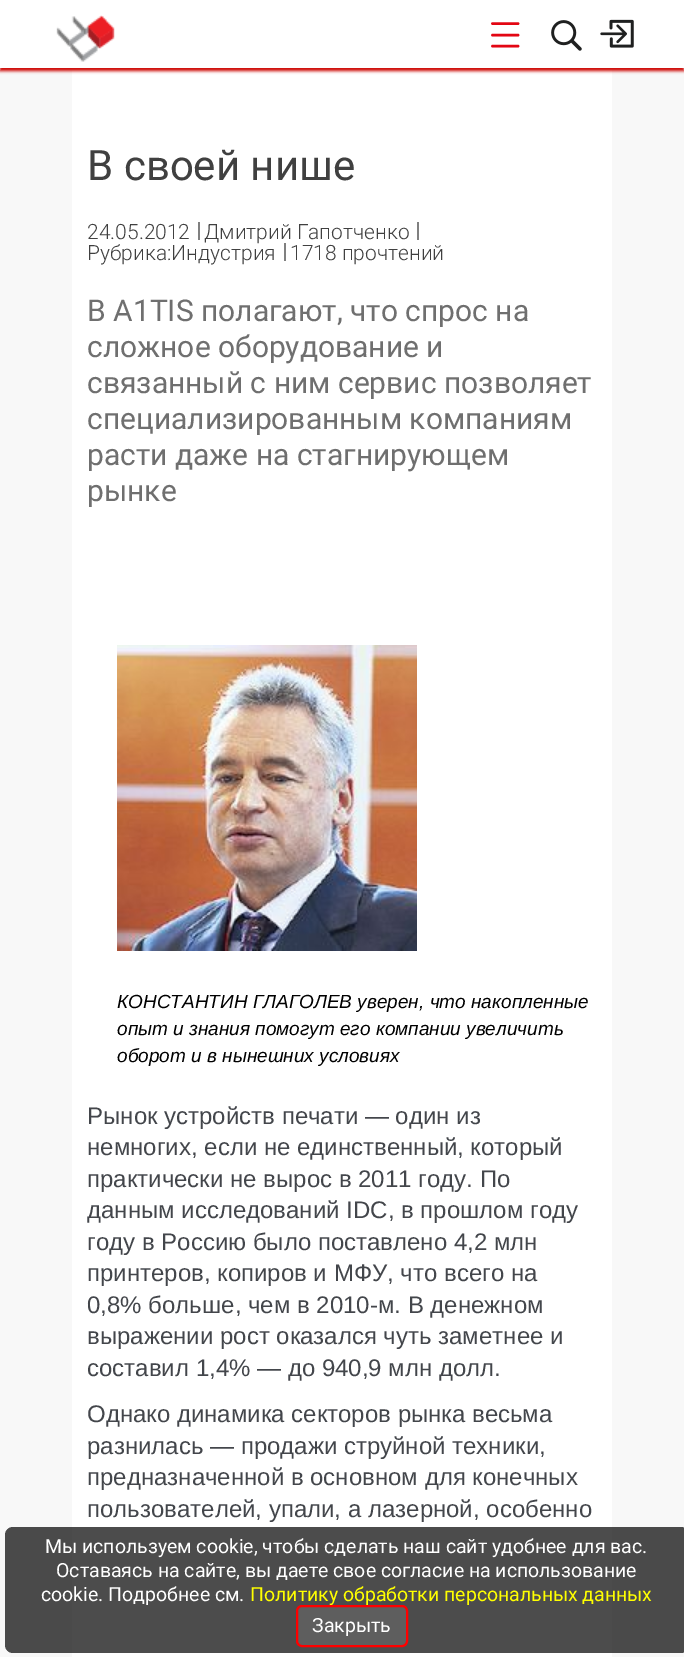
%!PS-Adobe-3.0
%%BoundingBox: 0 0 684 1657
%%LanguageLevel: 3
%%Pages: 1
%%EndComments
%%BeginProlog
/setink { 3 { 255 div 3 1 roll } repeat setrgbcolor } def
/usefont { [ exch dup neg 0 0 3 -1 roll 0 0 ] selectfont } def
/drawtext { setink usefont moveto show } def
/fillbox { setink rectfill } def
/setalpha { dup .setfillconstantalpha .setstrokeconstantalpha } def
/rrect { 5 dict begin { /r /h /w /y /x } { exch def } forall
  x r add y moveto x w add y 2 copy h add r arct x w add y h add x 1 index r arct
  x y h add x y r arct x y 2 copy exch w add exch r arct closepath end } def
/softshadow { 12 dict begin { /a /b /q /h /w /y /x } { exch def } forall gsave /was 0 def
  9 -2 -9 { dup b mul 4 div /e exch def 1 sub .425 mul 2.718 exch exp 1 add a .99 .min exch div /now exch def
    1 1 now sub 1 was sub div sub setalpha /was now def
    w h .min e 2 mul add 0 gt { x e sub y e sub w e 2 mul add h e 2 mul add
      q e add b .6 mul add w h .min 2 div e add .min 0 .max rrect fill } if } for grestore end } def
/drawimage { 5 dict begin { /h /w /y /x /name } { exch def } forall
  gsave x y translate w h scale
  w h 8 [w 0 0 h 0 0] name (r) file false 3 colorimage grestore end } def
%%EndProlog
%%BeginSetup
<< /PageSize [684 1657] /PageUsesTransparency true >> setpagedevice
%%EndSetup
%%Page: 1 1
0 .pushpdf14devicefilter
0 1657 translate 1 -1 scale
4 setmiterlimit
0 0 684 1657 248 248 248 fillbox
72 68 540 1589 255 255 255 fillbox
205 4 0 setink
0 3 684 68 0 1.5 1 softshadow
0 0 684 68 255 255 255 fillbox
(assets/img1.rgb) 56 15 59 47 drawimage
227 6 19 setink
2.6 setlinewidth
1 setlinecap
492.5 23.5 moveto 518 23.5 lineto 492.5 35 moveto 518 35 lineto 492.5 46 moveto 518 46 lineto stroke
(assets/img2.rgb) 551 20 31 31 drawimage
(assets/img3.rgb) 600 19 34 29 drawimage
(В своей нише) 87 180 /Roboto-Regular 42 64 64 64 drawtext
198 222 2 18 128 128 128 fillbox
(24.05.2012) 87 239 /Roboto-Light 21 64 64 64 drawtext
417 222 2 18 128 128 128 fillbox
(Дмитрий Гапотченко) 204 239 /Roboto-Light 21 64 64 64 drawtext
284 243 2 18 128 128 128 fillbox
(Рубрика:Индустрия) 87 260 /Roboto-Light 21 64 64 64 drawtext
(1718 прочтений) 290 260 /Roboto-Light 21 64 64 64 drawtext
(В A1TIS полагают, что спрос на) 87 321 /Roboto-Regular 30 111 111 111 drawtext
(сложное оборудование и) 87 357 /Roboto-Regular 30 111 111 111 drawtext
(связанный с ним сервис позволяет) 87 393 /Roboto-Regular 30 111 111 111 drawtext
(специализированным компаниям) 87 429 /Roboto-Regular 30 111 111 111 drawtext
(расти даже на стагнирующем) 87 465 /Roboto-Regular 30 111 111 111 drawtext
(рынке) 87 501 /Roboto-Regular 30 111 111 111 drawtext
(assets/img4.rgb) 117 645 300 306 drawimage
(КОНСТАНТИН ГЛАГОЛЕВ уверен, что накопленные) 117 1008 /LiberationSans-Italic 19 0 0 0 drawtext
(опыт и знания помогут его компании увеличить) 117 1035 /LiberationSans-Italic 19 0 0 0 drawtext
(оборот и в нынешних условиях) 117 1062 /LiberationSans-Italic 19 0 0 0 drawtext
(Рынок устройств печати — один из) 87 1124 /LiberationSans-Regular 24 67 70 75 drawtext
(немногих, если не единственный, который) 87 1155 /LiberationSans-Regular 24 67 70 75 drawtext
(практически не вырос в 2011 году. По) 87 1187 /LiberationSans-Regular 24 67 70 75 drawtext
(данным исследований IDC, в прошлом году) 87 1218 /LiberationSans-Regular 24 67 70 75 drawtext
(году в Россию было поставлено 4,2 млн) 87 1250 /LiberationSans-Regular 24 67 70 75 drawtext
(принтеров, копиров и МФУ, что всего на) 87 1281 /LiberationSans-Regular 24 67 70 75 drawtext
(0,8% больше, чем в 2010-м. В денежном) 87 1313 /LiberationSans-Regular 24 67 70 75 drawtext
(выражении рост оказался чуть заметнее и) 87 1344 /LiberationSans-Regular 24 67 70 75 drawtext
(составил 1,4% — до 940,9 млн долл.) 87 1376 /LiberationSans-Regular 24 67 70 75 drawtext
(Однако динамика секторов рынка весьма) 87 1422 /LiberationSans-Regular 24 67 70 75 drawtext
(разнилась — продажи струйной техники,) 87 1454 /LiberationSans-Regular 24 67 70 75 drawtext
(предназначенной в основном для конечных) 87 1485 /LiberationSans-Regular 24 67 70 75 drawtext
(пользователей, упали, а лазерной, особенно) 87 1517 /LiberationSans-Regular 24 67 70 75 drawtext
0.7 setalpha
0 0 0 setink
5 1527 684 126 8 rrect fill
1 setalpha
(Мы используем cookie, чтобы сделать наш сайт удобнее для вас.) 45 1553 /Roboto-Regular 19.5 255 255 255 drawtext
(Оставаясь на сайте, вы даете свое согласие на использование) 56 1577 /Roboto-Regular 19.5 255 255 255 drawtext
(cookie. Подробнее см.) 41 1601 /Roboto-Regular 19.5 255 255 255 drawtext
(Политику обработки персональных данных) 250 1601 /Roboto-Regular 19.5 255 255 0 drawtext
0.1 setalpha
255 255 255 setink
297 1607 110 39 5 rrect fill
1 setalpha
255 0 0 setink
2 setlinewidth
0 setlinecap
297 1606 110 40 5 rrect stroke
(Закрыть) 312 1632 /Roboto-Regular 19.5 255 255 255 drawtext
.poppdf14devicefilter showpage
%%EOF
